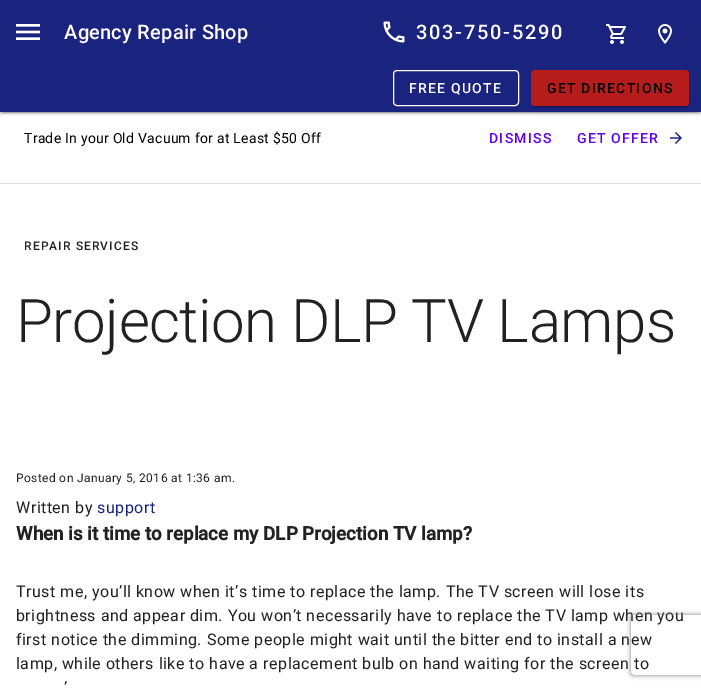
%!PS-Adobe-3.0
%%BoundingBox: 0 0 701 689
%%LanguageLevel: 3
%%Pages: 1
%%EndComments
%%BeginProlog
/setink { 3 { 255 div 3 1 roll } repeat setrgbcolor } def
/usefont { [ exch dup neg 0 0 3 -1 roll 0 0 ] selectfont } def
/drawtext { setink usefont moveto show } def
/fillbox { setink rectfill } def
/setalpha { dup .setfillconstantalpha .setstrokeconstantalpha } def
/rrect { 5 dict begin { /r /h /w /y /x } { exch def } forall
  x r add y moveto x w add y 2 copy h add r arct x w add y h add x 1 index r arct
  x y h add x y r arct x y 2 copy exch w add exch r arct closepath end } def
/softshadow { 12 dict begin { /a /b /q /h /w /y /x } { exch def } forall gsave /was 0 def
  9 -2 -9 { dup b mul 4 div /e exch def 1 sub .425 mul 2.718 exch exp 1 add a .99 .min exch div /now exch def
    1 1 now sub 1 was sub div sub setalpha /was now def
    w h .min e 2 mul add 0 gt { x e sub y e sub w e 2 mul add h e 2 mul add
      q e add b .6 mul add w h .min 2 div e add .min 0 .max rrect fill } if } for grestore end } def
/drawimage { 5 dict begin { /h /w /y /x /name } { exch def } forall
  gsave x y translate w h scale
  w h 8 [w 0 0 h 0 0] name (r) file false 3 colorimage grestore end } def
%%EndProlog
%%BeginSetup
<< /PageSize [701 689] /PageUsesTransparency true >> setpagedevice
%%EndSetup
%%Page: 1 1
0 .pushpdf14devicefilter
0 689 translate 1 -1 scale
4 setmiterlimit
0 0 701 689 255 255 255 fillbox
0 0 0 setink
0 1 701 112 0 2.5 0.12 softshadow
0 2 701 112 0 1 0.14 softshadow
2 5 697 108 0 0.5 0.2 softshadow
0 0 701 112 26 35 126 fillbox
(assets/img1.rgb) 16 24 24 16 drawimage
/Roboto-Medium 20 usefont
255 255 255 setink
64 39 moveto 0.25 0 (Agency Repair Shop) ashow
(assets/img2.rgb) 383 21 22 22 drawimage
416 39 moveto 1.75 0 (303-750-5290) ashow
(assets/img3.rgb) 606 24 20 20 drawimage
(assets/img4.rgb) 658 24 14 20 drawimage
393.5 70.5 125 35 3.5 rrect stroke
/Roboto-Medium 14 usefont
409 93 moveto 1.25 0 (FREE QUOTE) ashow
0 0 0 setink
531 71 158 36 4 2.5 0.12 softshadow
531 72 158 36 4 1 0.14 softshadow
533 75 154 32 2 0.5 0.2 softshadow
183 28 28 setink
531 70 158 36 4 rrect fill
0 0 0 setink
547 93 moveto 1.25 0 (GET DIRECTIONS) ashow
0 183 701 1 224 224 224 fillbox
/Roboto-Regular 14 usefont
0 0 0 setink
24 143 moveto 0.25 0 (Trade In your Old Vacuum for at Least $50 Off) ashow
/Roboto-Medium 14 usefont
98 0 238 setink
489 143 moveto 1.25 0 (DISMISS) ashow
577 143 moveto 1.25 0 (GET OFFER) ashow
(assets/img5.rgb) 670 132 12 12 drawimage
/Roboto-Medium 12 usefont
33 33 33 setink
24 250 moveto 1.1 0 (REPAIR SERVICES) ashow
/Roboto-Light 60 usefont
16 342 moveto -0.5 0 (Projection DLP TV Lamps) ashow
/Roboto-Regular 12 usefont
16 482 moveto 0.4 0 (Posted on January 5, 2016 at 1:36 am.) ashow
/Roboto-Regular 16 usefont
16 513 moveto 0.5 0 (Written by) ashow
26 35 126 setink
97 513 moveto 0.5 0 (support) ashow
(When is it time to replace my DLP Projection TV lamp?) 16 540 /Roboto-Bold 18.75 33 33 33 drawtext
/Roboto-Regular 16 usefont
16 597 moveto 0.5 0 (Trust me, you’ll know when it’s time to replace the lamp. The TV screen will lose its) ashow
16 621 moveto 0.5 0 (brightness and appear dim. You won’t necessarily have to replace the TV lamp when you) ashow
16 645 moveto 0.5 0 (first notice the dimming. Some people might wait until the bitter end to install a new) ashow
16 669 moveto 0.5 0 (lamp, while others like to have a replacement bulb on hand waiting for the screen to) ashow
64 693 moveto 0.5 0 (’) ashow
gsave
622 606 moveto 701 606 lineto 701 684 lineto 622 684 lineto closepath 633 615 moveto 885 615 lineto 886 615 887 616 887 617 curveto 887 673 lineto 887 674 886 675 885 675 curveto 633 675 lineto 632 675 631 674 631 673 curveto 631 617 lineto 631 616 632 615 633 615 curveto closepath eoclip newpath
128 128 128 setink
631 615 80 60 2 2.5 1 softshadow
grestore
.poppdf14devicefilter showpage
%%EOF
